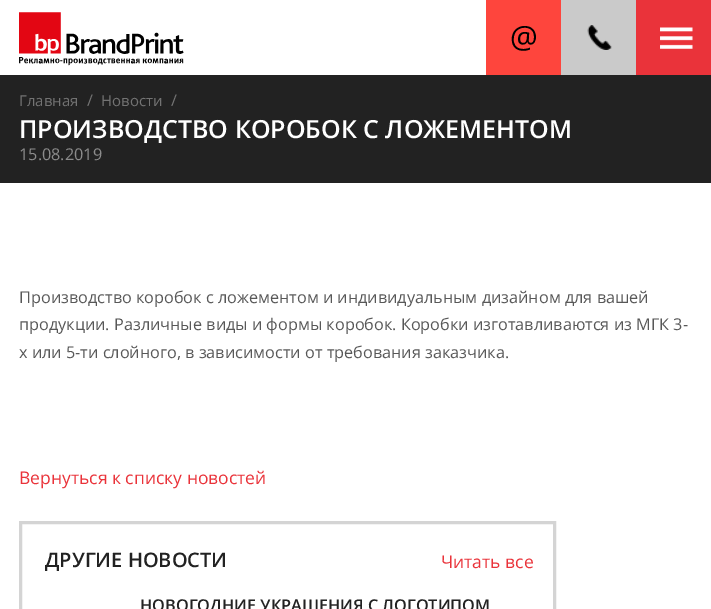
%!PS-Adobe-3.0
%%BoundingBox: 0 0 711 609
%%LanguageLevel: 3
%%Pages: 1
%%EndComments
%%BeginProlog
/setink { 3 { 255 div 3 1 roll } repeat setrgbcolor } def
/usefont { [ exch dup neg 0 0 3 -1 roll 0 0 ] selectfont } def
/drawtext { setink usefont moveto show } def
/fillbox { setink rectfill } def
/drawimage { 5 dict begin { /h /w /y /x /name } { exch def } forall
  gsave x y translate w h scale
  w h 8 [w 0 0 h 0 0] name (r) file false 3 colorimage grestore end } def
%%EndProlog
%%BeginSetup
<< /PageSize [711 609] >> setpagedevice
%%EndSetup
%%Page: 1 1
0 609 translate 1 -1 scale
4 setmiterlimit
0 0 711 609 255 255 255 fillbox
(assets/img1.rgb) 19 12 165 54 drawimage
486 0 75 75 254 69 61 fillbox
(@) 510 48 /OpenSans-Regular 31 0 0 0 drawtext
561 0 75 75 202 202 202 fillbox
(assets/img2.rgb) 587 25 25 25 drawimage
636 0 75 75 234 51 58 fillbox
(assets/img3.rgb) 660 27 33 22 drawimage
0 75 711 108 34 34 34 fillbox
(Главная) 19 106 /OpenSans-Regular 15 115 115 115 drawtext
(/) 87 106 /OpenSans-Regular 16.25 115 115 115 drawtext
(Новости) 101 106 /OpenSans-Regular 15 115 115 115 drawtext
(/) 171 106 /OpenSans-Regular 16.25 115 115 115 drawtext
(ПРОИЗВОДСТВО КОРОБОК С ЛОЖЕМЕНТОМ) 19 138 /OpenSans-SemiBold 25 255 255 255 drawtext
(15.08.2019) 19 160 /OpenSans-Regular 16.25 140 140 140 drawtext
(Производство коробок с ложементом и индивидуальным дизайном для вашей) 19 303 /OpenSans-Regular 16.25 88 88 88 drawtext
(продукции. Различные виды и формы коробок. Коробки изготавливаются из МГК 3-) 19 330 /OpenSans-Regular 16.25 88 88 88 drawtext
(х или 5-ти слойного, в зависимости от требования заказчика.) 19 358 /OpenSans-Regular 16.25 88 88 88 drawtext
(Вернуться к списку новостей) 19 484 /OpenSans-Regular 17.5 234 51 58 drawtext
212 212 212 setink
3 setlinewidth
20.5 522.5 534 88 rectstroke
(ДРУГИЕ НОВОСТИ) 45 567 /OpenSans-SemiBold 20 34 34 34 drawtext
(Читать все) 441 568 /OpenSans-Regular 17.5 234 51 58 drawtext
(НОВОГОДНИЕ УКРАШЕНИЯ С ЛОГОТИПОМ) 140 611 /OpenSans-SemiBold 16.25 34 34 34 drawtext
showpage
%%EOF
